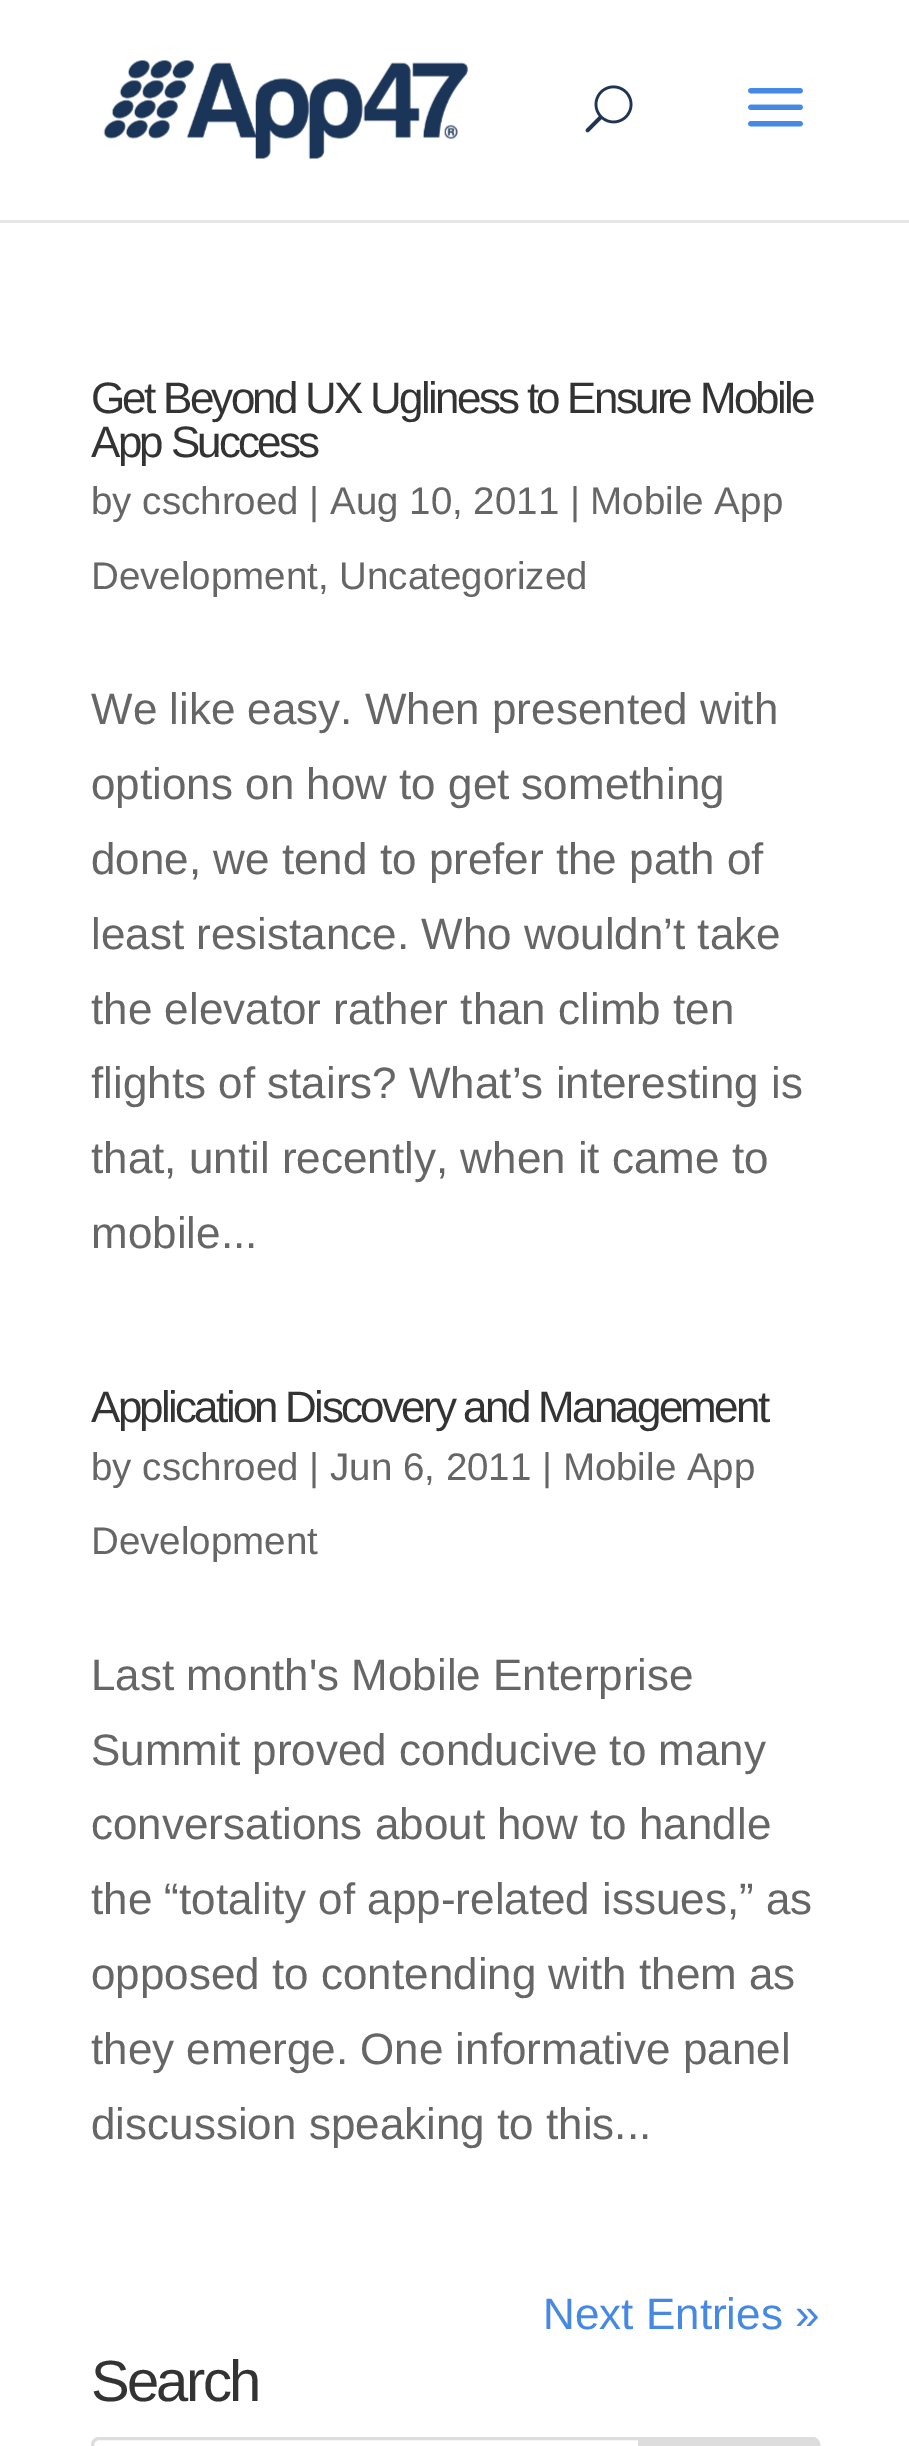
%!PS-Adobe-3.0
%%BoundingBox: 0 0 909 2446
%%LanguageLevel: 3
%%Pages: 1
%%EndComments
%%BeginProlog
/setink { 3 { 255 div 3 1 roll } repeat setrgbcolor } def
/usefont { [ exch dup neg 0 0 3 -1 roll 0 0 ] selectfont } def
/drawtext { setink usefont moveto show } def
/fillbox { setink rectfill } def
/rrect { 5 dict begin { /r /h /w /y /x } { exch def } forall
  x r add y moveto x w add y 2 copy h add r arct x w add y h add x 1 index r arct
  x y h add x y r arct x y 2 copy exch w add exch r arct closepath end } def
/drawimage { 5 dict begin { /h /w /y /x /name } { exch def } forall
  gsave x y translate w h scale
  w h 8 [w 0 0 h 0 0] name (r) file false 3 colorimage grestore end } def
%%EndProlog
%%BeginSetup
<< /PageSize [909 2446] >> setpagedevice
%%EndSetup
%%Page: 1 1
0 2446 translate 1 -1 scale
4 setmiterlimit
0 0 909 2446 255 255 255 fillbox
0 220 909 3 230 230 230 fillbox
(assets/img1.rgb) 103 60 365 99 drawimage
(assets/img2.rgb) 585 85 48 48 drawimage
(assets/img3.rgb) 748 88 55 39 drawimage
/LiberationSans-Regular 44 usefont
51 51 51 setink
91 413 moveto -2.75 0 (Get Beyond UX Ugliness to Ensure Mobile) ashow
91 457 moveto -2.75 0 (App Success) ashow
(by cschroed | Aug 10, 2011 | Mobile App) 91 514 /LiberationSans-Regular 38.5 102 102 102 drawtext
(Development, Uncategorized) 91 589 /LiberationSans-Regular 38.5 102 102 102 drawtext
(We like easy. When presented with) 91 724 /LiberationSans-Regular 44 102 102 102 drawtext
(options on how to get something) 91 799 /LiberationSans-Regular 44 102 102 102 drawtext
(done, we tend to prefer the path of) 91 874 /LiberationSans-Regular 44 102 102 102 drawtext
(least resistance. Who wouldn’t take) 91 949 /LiberationSans-Regular 44 102 102 102 drawtext
(the elevator rather than climb ten) 91 1024 /LiberationSans-Regular 44 102 102 102 drawtext
(flights of stairs? What’s interesting is) 91 1098 /LiberationSans-Regular 44 102 102 102 drawtext
(that, until recently, when it came to) 91 1173 /LiberationSans-Regular 44 102 102 102 drawtext
(mobile...) 91 1248 /LiberationSans-Regular 44 102 102 102 drawtext
51 51 51 setink
91 1422 moveto -2.75 0 (Application Discovery and Management) ashow
(by cschroed | Jun 6, 2011 | Mobile App) 91 1480 /LiberationSans-Regular 38.5 102 102 102 drawtext
(Development) 91 1554 /LiberationSans-Regular 38.5 102 102 102 drawtext
(Last month's Mobile Enterprise) 91 1690 /LiberationSans-Regular 44 102 102 102 drawtext
(Summit proved conducive to many) 91 1765 /LiberationSans-Regular 44 102 102 102 drawtext
(conversations about how to handle) 91 1839 /LiberationSans-Regular 44 102 102 102 drawtext
(the “totality of app-related issues,” as) 91 1914 /LiberationSans-Regular 44 102 102 102 drawtext
(opposed to contending with them as) 91 1989 /LiberationSans-Regular 44 102 102 102 drawtext
(they emerge. One informative panel) 91 2064 /LiberationSans-Regular 44 102 102 102 drawtext
(discussion speaking to this...) 91 2139 /LiberationSans-Regular 44 102 102 102 drawtext
(Next Entries ») 543 2329 /LiberationSans-Regular 44 70 137 228 drawtext
/LiberationSans-Regular 58 usefont
51 51 51 setink
91 2401 moveto -2.75 0 (Search) ashow
221 221 221 setink
3 setlinewidth
92.5 2438.5 726 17 6.5 rrect stroke
639.5 2438.5 moveto 812 2438.5 lineto 815.5 2438.5 818.5 2441.5 818.5 2445 curveto 818.5 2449 lineto 818.5 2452.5 815.5 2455.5 812 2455.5 curveto 639.5 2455.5 lineto closepath gsave fill grestore
stroke
showpage
%%EOF
